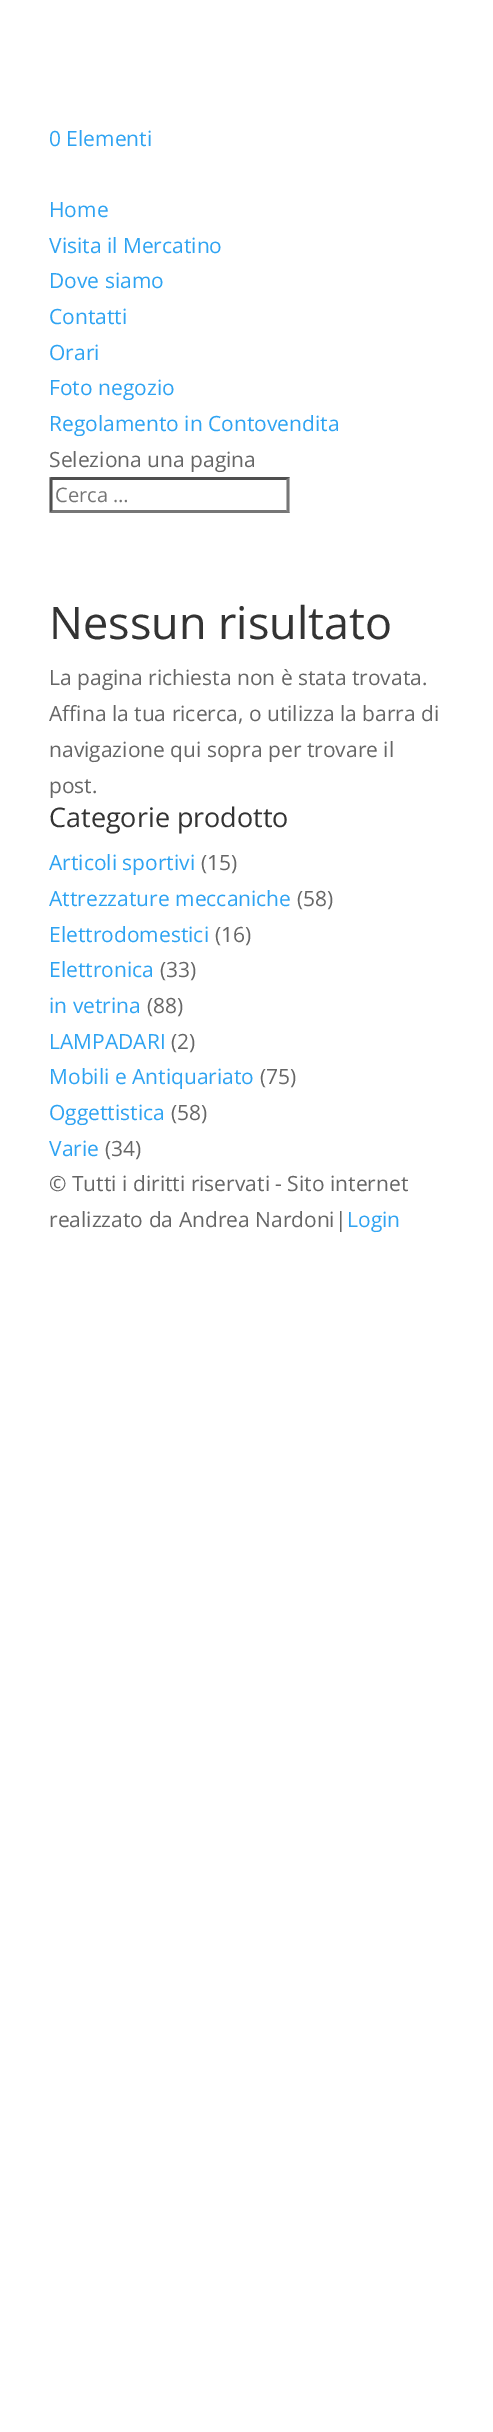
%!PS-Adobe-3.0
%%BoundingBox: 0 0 493 2432
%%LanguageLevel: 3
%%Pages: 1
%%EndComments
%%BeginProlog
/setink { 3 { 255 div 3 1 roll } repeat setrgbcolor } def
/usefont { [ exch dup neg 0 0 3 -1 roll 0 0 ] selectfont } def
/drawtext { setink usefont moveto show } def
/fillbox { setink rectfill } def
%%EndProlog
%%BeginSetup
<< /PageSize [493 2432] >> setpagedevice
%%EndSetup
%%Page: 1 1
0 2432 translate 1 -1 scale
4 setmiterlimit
0 0 493 2432 255 255 255 fillbox
(0 Elementi) 49 146 /OpenSans-Regular 21 46 163 242 drawtext
(Home) 49 217 /OpenSans-Regular 21 46 163 242 drawtext
(Visita il Mercatino) 49 253 /OpenSans-Regular 21 46 163 242 drawtext
(Dove siamo) 49 288 /OpenSans-Regular 21 46 163 242 drawtext
(Contatti) 49 324 /OpenSans-Regular 21 46 163 242 drawtext
(Orari) 49 360 /OpenSans-Regular 21 46 163 242 drawtext
(Foto negozio) 49 395 /OpenSans-Regular 21 46 163 242 drawtext
(Regolamento in Contovendita) 49 431 /OpenSans-Regular 21 46 163 242 drawtext
(Seleziona una pagina) 49 467 /OpenSans-Regular 21 102 102 102 drawtext
79 79 79 setink
50 477 moveto 290 477 lineto 286 480 lineto 52 480 lineto closepath fill
118 118 118 setink
289.5 477 moveto 289.5 513 lineto 286.5 510 lineto 286.5 480 lineto closepath fill
290 513 moveto 50 513 lineto 52 510 lineto 286 510 lineto closepath fill
79 79 79 setink
49.5 513 moveto 49.5 477 lineto 52.5 480 lineto 52.5 510 lineto closepath fill
(Cerca …) 55 502 /OpenSans-Regular 20 117 117 117 drawtext
(Nessun risultato) 49 639 /OpenSans-Regular 45 51 51 51 drawtext
(La pagina richiesta non è stata trovata.) 49 685 /OpenSans-Regular 21 102 102 102 drawtext
(Affina la tua ricerca, o utilizza la barra di) 49 721 /OpenSans-Regular 21 102 102 102 drawtext
(navigazione qui sopra per trovare il) 49 757 /OpenSans-Regular 21 102 102 102 drawtext
(post.) 49 793 /OpenSans-Regular 21 102 102 102 drawtext
(Categorie prodotto) 49 827 /OpenSans-Regular 27 51 51 51 drawtext
(Articoli sportivi) 49 870 /OpenSans-Regular 21 46 163 242 drawtext
(\(15\)) 201 870 /OpenSans-Regular 21 102 102 102 drawtext
(Attrezzature meccaniche) 49 906 /OpenSans-Regular 21 46 163 242 drawtext
(\(58\)) 297 906 /OpenSans-Regular 21 102 102 102 drawtext
(Elettrodomestici) 49 942 /OpenSans-Regular 21 46 163 242 drawtext
(\(16\)) 215 942 /OpenSans-Regular 21 102 102 102 drawtext
(Elettronica) 49 977 /OpenSans-Regular 21 46 163 242 drawtext
(\(33\)) 160 977 /OpenSans-Regular 21 102 102 102 drawtext
(in vetrina) 49 1013 /OpenSans-Regular 21 46 163 242 drawtext
(\(88\)) 147 1013 /OpenSans-Regular 21 102 102 102 drawtext
(LAMPADARI) 49 1049 /OpenSans-Regular 21 46 163 242 drawtext
(\(2\)) 171 1049 /OpenSans-Regular 21 102 102 102 drawtext
(Mobili e Antiquariato) 49 1084 /OpenSans-Regular 21 46 163 242 drawtext
(\(75\)) 260 1084 /OpenSans-Regular 21 102 102 102 drawtext
(Oggettistica) 49 1120 /OpenSans-Regular 21 46 163 242 drawtext
(\(58\)) 171 1120 /OpenSans-Regular 21 102 102 102 drawtext
(Varie) 49 1156 /OpenSans-Regular 21 46 163 242 drawtext
(\(34\)) 105 1156 /OpenSans-Regular 21 102 102 102 drawtext
(© Tutti i diritti riservati - Sito internet) 49 1191 /OpenSans-Regular 21 102 102 102 drawtext
(realizzato da Andrea Nardoni|) 49 1227 /OpenSans-Regular 21 102 102 102 drawtext
(Login) 347 1227 /OpenSans-Regular 21 46 163 242 drawtext
showpage
%%EOF
